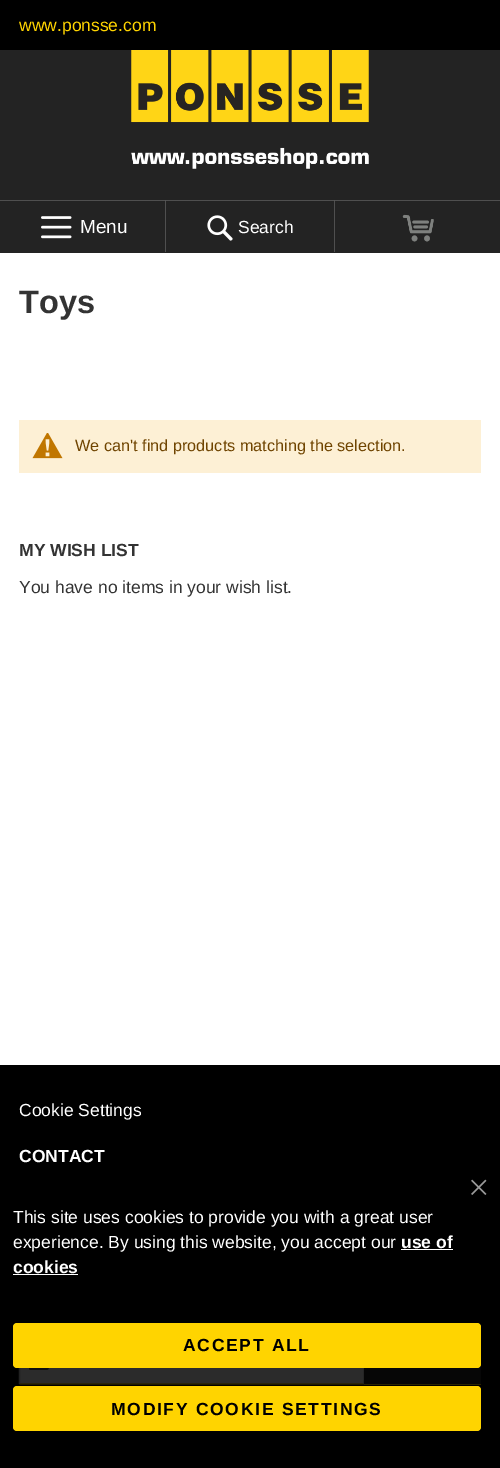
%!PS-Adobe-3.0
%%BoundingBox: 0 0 500 1468
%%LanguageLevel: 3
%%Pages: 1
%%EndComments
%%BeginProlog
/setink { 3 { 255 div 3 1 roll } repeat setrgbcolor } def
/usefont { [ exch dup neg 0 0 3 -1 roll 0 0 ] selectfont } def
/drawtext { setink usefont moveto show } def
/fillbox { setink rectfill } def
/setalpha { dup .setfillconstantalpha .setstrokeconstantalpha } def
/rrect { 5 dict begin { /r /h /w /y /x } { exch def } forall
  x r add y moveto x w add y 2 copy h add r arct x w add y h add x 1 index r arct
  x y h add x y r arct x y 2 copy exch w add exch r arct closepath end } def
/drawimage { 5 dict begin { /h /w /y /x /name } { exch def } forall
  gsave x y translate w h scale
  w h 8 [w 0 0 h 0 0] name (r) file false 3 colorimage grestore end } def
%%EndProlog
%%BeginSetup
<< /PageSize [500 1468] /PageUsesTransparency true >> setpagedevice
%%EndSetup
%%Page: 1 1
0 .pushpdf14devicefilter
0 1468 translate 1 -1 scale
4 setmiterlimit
0 0 500 1468 255 255 255 fillbox
0 50 500 203 35 35 35 fillbox
0 0 500 50 0 0 0 fillbox
(www.ponsse.com) 19 31 /LiberationSans-Regular 17.5 255 212 0 drawtext
(assets/img1.rgb) 131 50 238 119 drawimage
0 200 165 1 79 79 79 fillbox
(assets/img2.rgb) 41 216 31 23 drawimage
(Menu) 80 233 /LiberationSans-Regular 19 255 255 255 drawtext
79 79 79 setink
165 200 moveto 335 200 lineto 334 201 lineto 166 201 lineto closepath fill
0.2 setalpha
255 255 255 setink
335 200 moveto 335 252 lineto 334 252 lineto 334 201 lineto closepath fill
165 252 moveto 165 200 lineto 166 201 lineto 166 252 lineto closepath fill
1 setalpha
(assets/img3.rgb) 207 215 26 26 drawimage
(Search) 238 233 /LiberationSans-Regular 17.5 255 255 255 drawtext
335 200 165 1 79 79 79 fillbox
(assets/img4.rgb) 402 214 32 28 drawimage
(Toys) 19 313 /LiberationSans-Bold 32.5 51 51 51 drawtext
19 420 462 53 253 240 213 fillbox
(assets/img5.rgb) 32 433 31 26 drawimage
(We can't find products matching the selection.) 75 451 /LiberationSans-Regular 16.25 111 68 0 drawtext
(MY WISH LIST) 19 556 /LiberationSans-Bold 17.5 51 51 51 drawtext
(You have no items in your wish list.) 19 593 /LiberationSans-Regular 17.5 51 51 51 drawtext
0 1065 500 403 0 0 0 fillbox
(Cookie Settings) 19 1116 /LiberationSans-Regular 17.5 255 255 255 drawtext
(CONTACT) 19 1162 /LiberationSans-Bold 17.5 255 255 255 drawtext
20 1368 344 16 255 255 255 fillbox
255 212 0 setink
1.2 setlinewidth
364 1384 moveto 19.5 1384 lineto stroke
194 194 194 setink
19.5 1384 moveto 19.5 1363 lineto 19.5 1323.5 13.5 1342 77.5 1342 curveto 306.5 1342 lineto 370 1342 364.5 1323.5 364.5 1363 curveto 364 1384 lineto stroke
(assets/img6.rgb) 29 1368 20 2 drawimage
364 1364 117 20 35 35 35 fillbox
364 1384 117 1 255 212 0 fillbox
0.83 setalpha
18 1337 463 48 0 0 0 fillbox
1 setalpha
(assets/img7.rgb) 471 1179 16 16 drawimage
(This site uses cookies to provide you with a great user) 13 1223 /LiberationSans-Regular 17.5 255 255 255 drawtext
(experience. By using this website, you accept our) 13 1248 /LiberationSans-Regular 17.5 255 255 255 drawtext
(use of) 401 1248 /LiberationSans-Bold 17.5 255 255 255 drawtext
401 1249 52 1 255 255 255 fillbox
(cookies) 13 1273 /LiberationSans-Bold 17.5 255 255 255 drawtext
13 1274 65 1 255 255 255 fillbox
255 212 0 setink
13 1323 468 45 4 rrect fill
0 0 0 setink
183 1351 moveto 1.7 0 (ACCEPT ALL) ashow
255 212 0 setink
13 1386 468 45 4 rrect fill
0 0 0 setink
111 1415 moveto 1.7 0 (MODIFY COOKIE SETTINGS) ashow
.poppdf14devicefilter showpage
%%EOF
